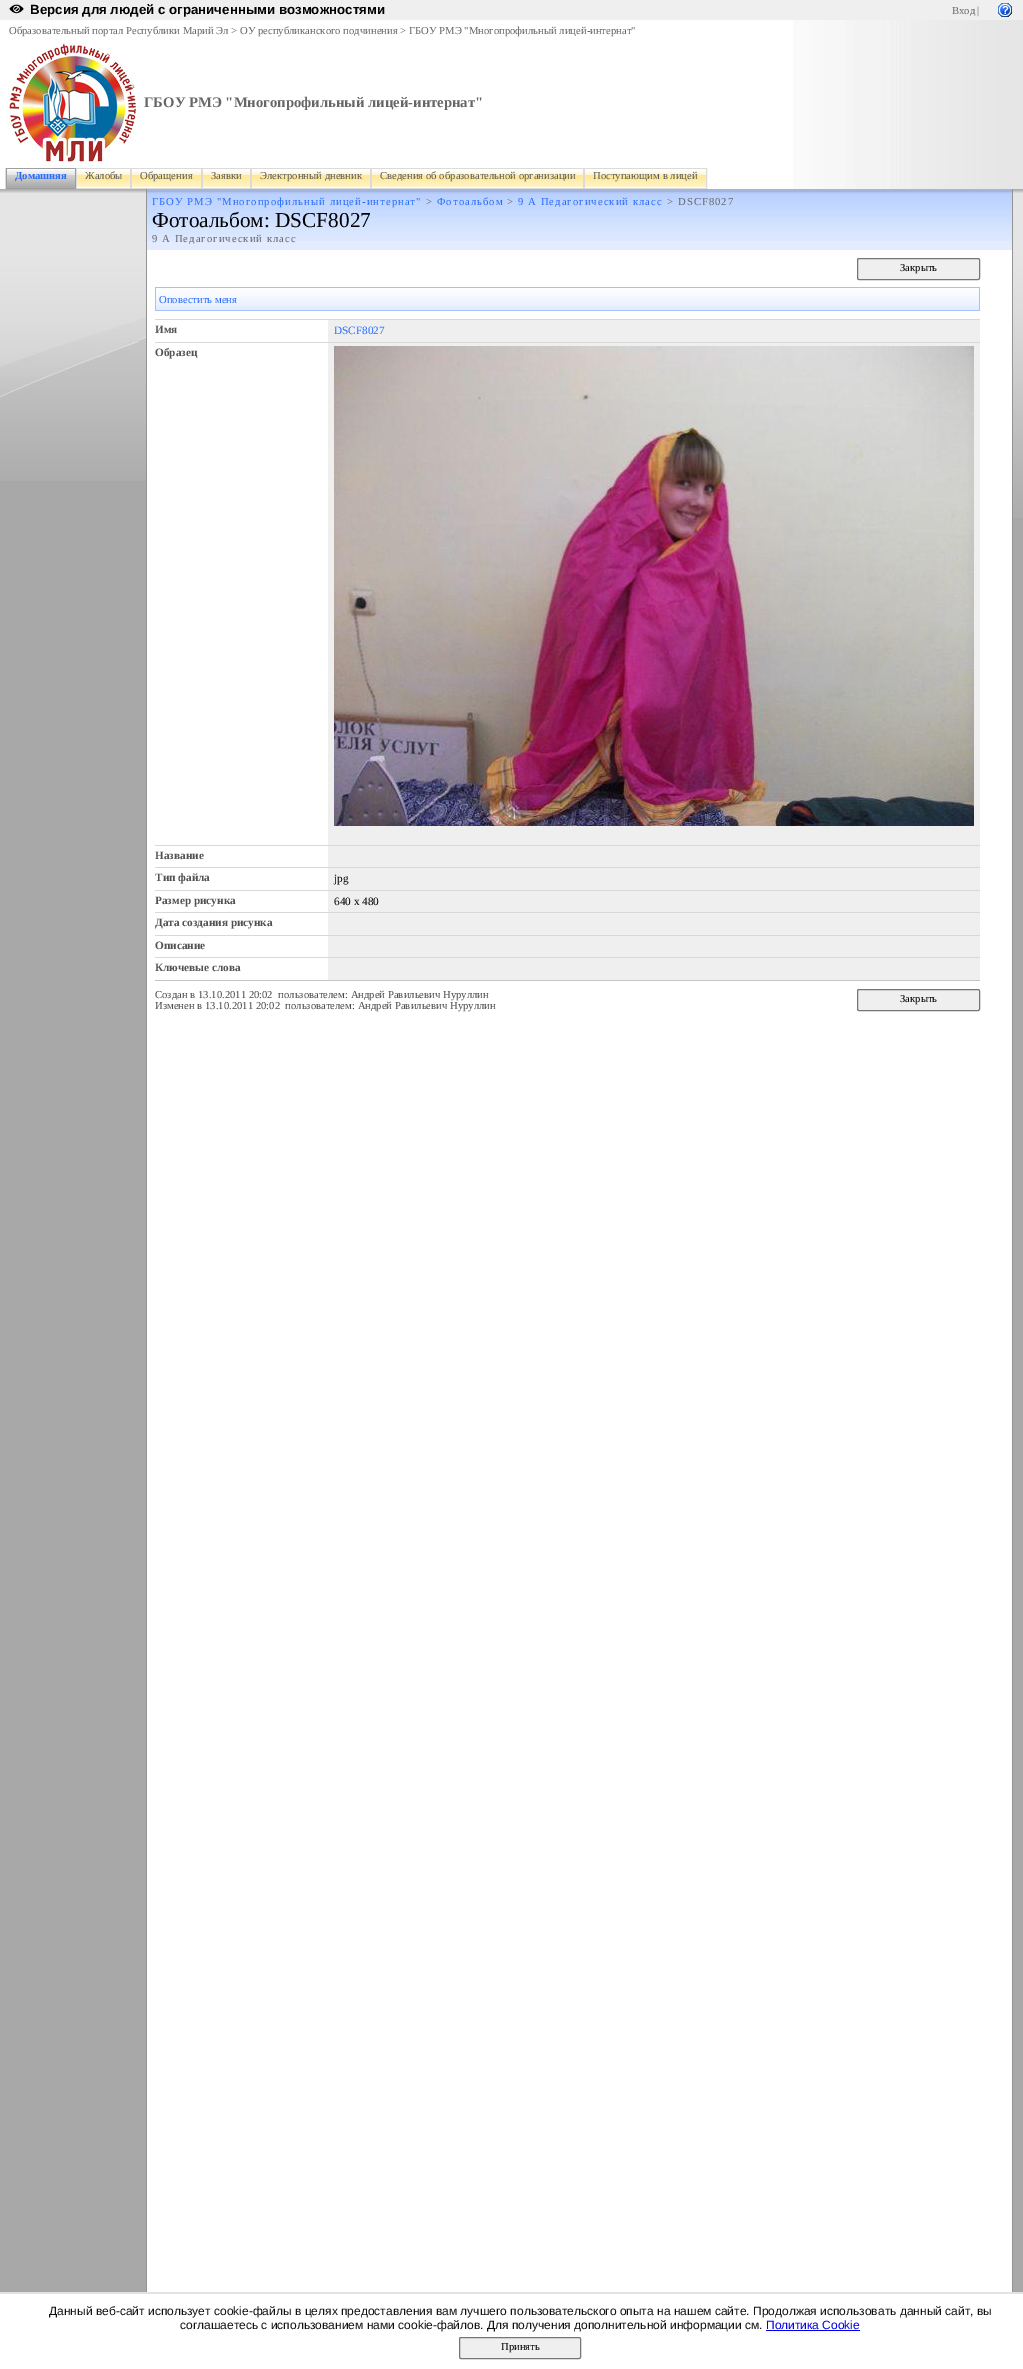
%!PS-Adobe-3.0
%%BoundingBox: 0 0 1023 2369
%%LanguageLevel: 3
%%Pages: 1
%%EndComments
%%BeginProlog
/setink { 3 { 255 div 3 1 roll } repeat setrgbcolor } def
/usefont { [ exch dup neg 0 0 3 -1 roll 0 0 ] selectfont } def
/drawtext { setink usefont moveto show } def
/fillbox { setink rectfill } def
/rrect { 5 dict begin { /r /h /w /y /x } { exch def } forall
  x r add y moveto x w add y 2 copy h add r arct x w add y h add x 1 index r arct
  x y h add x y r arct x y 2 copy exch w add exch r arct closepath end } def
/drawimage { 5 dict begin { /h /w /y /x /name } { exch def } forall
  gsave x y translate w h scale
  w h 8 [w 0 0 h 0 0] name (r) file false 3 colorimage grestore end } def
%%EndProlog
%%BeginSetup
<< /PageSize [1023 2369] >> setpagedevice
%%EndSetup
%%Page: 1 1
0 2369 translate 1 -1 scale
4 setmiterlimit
0 0 1023 2369 255 255 255 fillbox
0 0 1023 20 239 239 239 fillbox
(assets/img1.rgb) 9 4 15 10 drawimage
(Версия для людей с ограниченными возможностями) 30 14 /LiberationSans-Bold 13.3 0 0 0 drawtext
(Вход) 952 14 /LiberationSerif-Regular 10.67 102 102 102 drawtext
(|) 977 14 /LiberationSerif-Regular 10.67 102 102 102 drawtext
(assets/img2.rgb) 998 3 14 14 drawimage
(assets/img3.rgb) 793 20 230 148 drawimage
(Образовательный портал Республики Марий Эл > ОУ республиканского подчинения > ГБОУ РМЭ "Многопрофильный лицей-интернат") 9 34 /LiberationSerif-Regular 10.67 102 102 102 drawtext
(assets/img4.rgb) 7 40 131 128 drawimage
(ГБОУ РМЭ "Многопрофильный лицей-интернат") 144 107 /LiberationSerif-Bold 14.7 102 102 102 drawtext
(assets/img5.rgb) 793 168 230 21 drawimage
5 168 1 21 219 219 219 fillbox
158 158 158 setink
6.5 168.5 69 20 rectstroke
(assets/img6.rgb) 7 169 68 19 drawimage
(Домашняя) 15 179 /LiberationSerif-Bold 10.67 39 108 255 drawtext
219 219 219 setink
76.5 168.5 54 20 rectstroke
(assets/img7.rgb) 77 169 53 19 drawimage
(Жалобы) 85 179 /LiberationSerif-Regular 10.67 91 91 91 drawtext
219 219 219 setink
131.5 168.5 70 20 rectstroke
(assets/img8.rgb) 132 169 69 19 drawimage
(Обращения) 140 179 /LiberationSerif-Regular 10.67 91 91 91 drawtext
219 219 219 setink
202.5 168.5 48 20 rectstroke
(assets/img9.rgb) 203 169 47 19 drawimage
(Заявки) 211 179 /LiberationSerif-Regular 10.67 91 91 91 drawtext
219 219 219 setink
251.5 168.5 119 20 rectstroke
(assets/img10.rgb) 252 169 118 19 drawimage
(Электронный дневник) 260 179 /LiberationSerif-Regular 10.67 91 91 91 drawtext
219 219 219 setink
371.5 168.5 212 20 rectstroke
(assets/img11.rgb) 372 169 211 19 drawimage
(Сведения об образовательной организации) 380 179 /LiberationSerif-Regular 10.67 91 91 91 drawtext
219 219 219 setink
584.5 168.5 122 20 rectstroke
(assets/img12.rgb) 585 169 121 19 drawimage
(Поступающим в лицей) 593 179 /LiberationSerif-Regular 10.67 91 91 91 drawtext
0 193 146 57 229 229 229 fillbox
(assets/img13.rgb) 0 189 138 4 drawimage
(assets/img14.rgb) 138 189 8 4 drawimage
146 189 1 2103 147 147 147 fillbox
147 241 865 9 226 235 255 fillbox
(assets/img15.rgb) 147 189 865 52 drawimage
39 108 255 setink
152 205 moveto 1.05 0 (ГБОУ РМЭ "Многопрофильный лицей-интернат") ashow
102 102 102 setink
426 205 moveto 1.05 0 (>) ashow
39 108 255 setink
437 205 moveto 1.05 0 (Фотоальбом) ashow
102 102 102 setink
507 205 moveto 1.05 0 (>) ashow
39 108 255 setink
518 205 moveto 1.05 0 (9 А Педагогический класс) ashow
102 102 102 setink
667 205 moveto 1.05 0 (> DSCF8027) ashow
(Фотоальбом: DSCF8027) 152 227 /LiberationSerif-Regular 21.25 0 0 0 drawtext
/LiberationSerif-Regular 10.67 usefont
102 102 102 setink
152 242 moveto 1.05 0 (9 А Педагогический класс) ashow
1013 193 10 57 229 229 229 fillbox
(assets/img16.rgb) 1013 189 10 4 drawimage
1012 189 1 2103 147 147 147 fillbox
0 481 146 1811 168 168 168 fillbox
(assets/img17.rgb) 0 250 138 231 drawimage
(assets/img18.rgb) 138 250 8 231 drawimage
239 239 239 setink
857.5 258.5 122 21 1.5 rrect gsave fill grestore
118 118 118 setink
stroke
(Закрыть) 900 271 /LiberationSerif-Regular 10.67 0 0 0 drawtext
156 306 823 4 228 236 255 fillbox
(assets/img19.rgb) 156 288 823 18 drawimage
155 287 825 1 163 193 255 fillbox
979 287 1 24 163 193 255 fillbox
155 310 825 1 163 193 255 fillbox
155 287 1 24 163 193 255 fillbox
(Оповестить меня) 159 303 /LiberationSerif-Regular 10.67 39 108 255 drawtext
155 319 825 1 216 216 216 fillbox
(Имя) 155 333 /LiberationSerif-Bold 11.25 82 82 82 drawtext
328 320 652 22 239 239 239 fillbox
(DSCF8027) 334 334 /LiberationSerif-Regular 11.25 39 108 255 drawtext
155 342 825 1 216 216 216 fillbox
(Образец) 155 356 /LiberationSerif-Bold 11.25 82 82 82 drawtext
328 343 652 502 239 239 239 fillbox
(assets/img20.rgb) 334 346 640 480 drawimage
155 845 825 1 216 216 216 fillbox
(Название) 155 859 /LiberationSerif-Bold 11.25 82 82 82 drawtext
328 846 652 21 239 239 239 fillbox
155 867 825 1 216 216 216 fillbox
(Тип файла) 155 881 /LiberationSerif-Bold 11.25 82 82 82 drawtext
328 868 652 22 239 239 239 fillbox
(jpg) 334 882 /LiberationSerif-Regular 11.25 0 0 0 drawtext
155 890 825 1 216 216 216 fillbox
(Размер рисунка) 155 904 /LiberationSerif-Bold 11.25 82 82 82 drawtext
328 891 652 21 239 239 239 fillbox
(640 x 480) 334 905 /LiberationSerif-Regular 11.25 0 0 0 drawtext
155 912 825 1 216 216 216 fillbox
(Дата создания рисунка) 155 926 /LiberationSerif-Bold 11.25 82 82 82 drawtext
328 913 652 22 239 239 239 fillbox
155 935 825 1 216 216 216 fillbox
(Описание) 155 949 /LiberationSerif-Bold 11.25 82 82 82 drawtext
328 936 652 21 239 239 239 fillbox
155 957 825 1 216 216 216 fillbox
(Ключевые слова) 155 971 /LiberationSerif-Bold 11.25 82 82 82 drawtext
328 958 652 22 239 239 239 fillbox
155 980 825 1 196 196 196 fillbox
(Создан в 13.10.2011 20:02  пользователем: Андрей Равильевич Нуруллин) 155 998 /LiberationSerif-Regular 10.67 76 76 76 drawtext
(Изменен в 13.10.2011 20:02  пользователем: Андрей Равильевич Нуруллин) 155 1009 /LiberationSerif-Regular 10.67 76 76 76 drawtext
239 239 239 setink
857.5 989.5 122 21 1.5 rrect gsave fill grestore
118 118 118 setink
stroke
(Закрыть) 900 1002 /LiberationSerif-Regular 10.67 0 0 0 drawtext
1013 518 10 1774 168 168 168 fillbox
(assets/img21.rgb) 1013 250 10 268 drawimage
0 2292 1023 2 227 227 227 fillbox
(Данный веб-сайт использует cookie-файлы в целях предоставления вам лучшего пользовательского опыта на нашем сайте. Продолжая использовать данный сайт, вы) 49 2315 /LiberationSans-Regular 12 17 17 17 drawtext
(соглашаетесь с использованием нами cookie-файлов. Для получения дополнительной информации см.) 180 2329 /LiberationSans-Regular 12 17 17 17 drawtext
(Политика Cookie) 766 2329 /LiberationSans-Regular 12 0 0 238 drawtext
766 2330 94 1 0 0 238 fillbox
239 239 239 setink
459.5 2337.5 121 21 1.5 rrect gsave fill grestore
118 118 118 setink
stroke
(Принять) 501 2350 /LiberationSerif-Regular 10.67 0 0 0 drawtext
showpage
%%EOF
